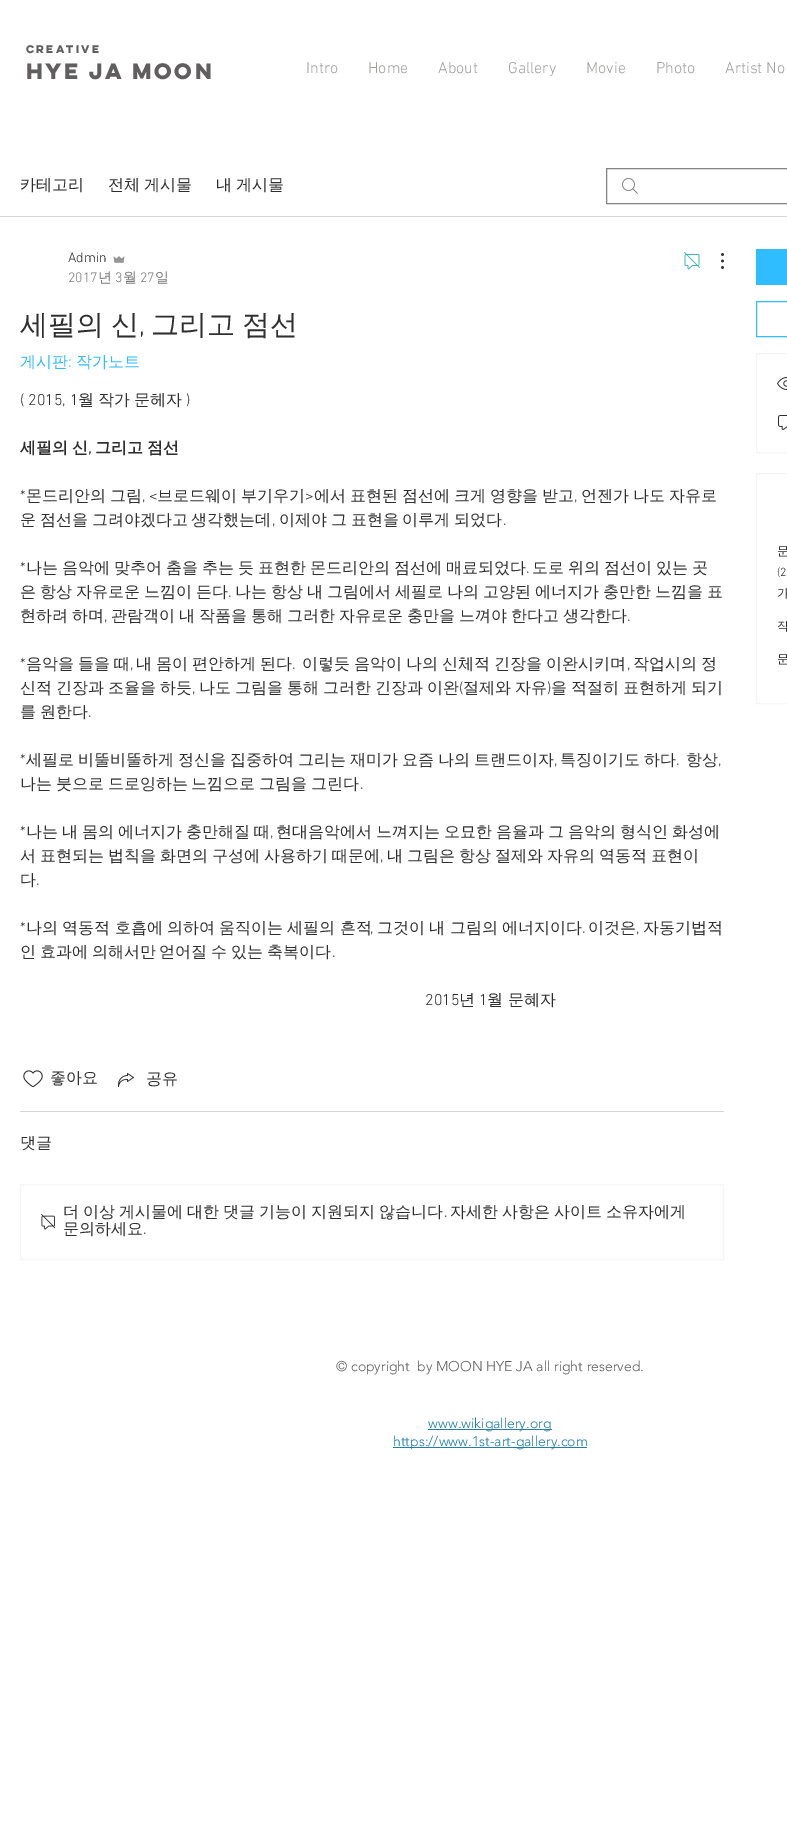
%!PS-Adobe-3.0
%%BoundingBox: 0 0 787 1836
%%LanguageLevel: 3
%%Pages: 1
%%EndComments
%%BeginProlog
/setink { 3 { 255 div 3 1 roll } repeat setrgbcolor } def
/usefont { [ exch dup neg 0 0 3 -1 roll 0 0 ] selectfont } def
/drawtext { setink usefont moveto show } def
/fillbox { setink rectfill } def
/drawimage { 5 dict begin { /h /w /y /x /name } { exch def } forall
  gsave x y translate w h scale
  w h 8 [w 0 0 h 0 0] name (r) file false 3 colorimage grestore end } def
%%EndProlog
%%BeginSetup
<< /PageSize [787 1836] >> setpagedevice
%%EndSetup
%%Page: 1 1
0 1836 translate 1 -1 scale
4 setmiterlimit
0 0 787 1836 255 255 255 fillbox
(creative) 26 53 /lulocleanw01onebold-Bold 10 96 94 94 drawtext
/lulocleanw01onebold-Bold 20 usefont
26 79 moveto -2 0 (HYE JA MOON) ashow
(Intro) 306 73 /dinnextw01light-Light 16 160 160 159 drawtext
(Home) 368 73 /dinnextw01light-Light 16 160 160 159 drawtext
(About) 438 73 /dinnextw01light-Light 16 160 160 159 drawtext
(Gallery) 508 73 /dinnextw01light-Light 16 160 160 159 drawtext
(Movie) 586 73 /dinnextw01light-Light 16 160 160 159 drawtext
(Photo) 656 73 /dinnextw01light-Light 16 160 160 159 drawtext
(Artist No) 725 73 /dinnextw01light-Light 16 160 160 159 drawtext
0 216 787 1 213 213 213 fillbox
(카테고리) 20 190 /WenQuanYiZenHei-Medium 16 47 46 46 drawtext
108 190 moveto -1 0 32 (전체 게시물) widthshow
216 190 moveto -1 0 32 (내 게시물) widthshow
(assets/img1.rgb) 622 178 16 16 drawimage
130 130 130 setink
606.5 168.5 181 35 rectstroke
(Admin) 68 262 /dinnextw01light-Light 14 47 46 46 drawtext
(assets/img2.rgb) 113 256 12 7 drawimage
(2017) 68 282 /dinnextw01light-Light 14 122 121 121 drawtext
(년) 98 282 /WenQuanYiZenHei-Medium 14 122 121 121 drawtext
(3) 115 282 /dinnextw01light-Light 14 122 121 121 drawtext
(월) 123 282 /WenQuanYiZenHei-Medium 14 122 121 121 drawtext
(27) 140 282 /dinnextw01light-Light 14 122 121 121 drawtext
(일) 155 282 /WenQuanYiZenHei-Medium 14 122 121 121 drawtext
(assets/img3.rgb) 684 252 16 18 drawimage
(assets/img4.rgb) 721 253 3 16 drawimage
/WenQuanYiZenHei-Medium 28 usefont
47 46 46 setink
20 334 moveto -1 0 32 (세필의 신) widthshow
(,) 139 334 /dinnextw01light-Light 28 47 46 46 drawtext
/WenQuanYiZenHei-Medium 28 usefont
151 334 moveto -1 0 32 (그리고 점선) widthshow
(게시판) 20 367 /WenQuanYiZenHei-Medium 16 48 189 255 drawtext
(:) 68 367 /dinnextw01light-Light 16 48 189 255 drawtext
(작가노트) 76 367 /WenQuanYiZenHei-Medium 16 48 189 255 drawtext
(\( 2015, 1) 20 405 /dinnextw01light-Light 16 47 46 46 drawtext
(월) 78 405 /WenQuanYiZenHei-Medium 16 47 46 46 drawtext
(작가) 98 405 /WenQuanYiZenHei-Medium 16 47 46 46 drawtext
(문헤자) 134 405 /WenQuanYiZenHei-Medium 16 47 46 46 drawtext
(\)) 186 405 /dinnextw01light-Light 16 47 46 46 drawtext
/WenQuanYiZenHei-Bold 16 usefont
20 453 moveto -1 0 32 (세필의 신) widthshow
(,) 88 453 /dinnextw01light-Bold 16 47 46 46 drawtext
/WenQuanYiZenHei-Bold 16 usefont
95 453 moveto -1 0 32 (그리고 점선) widthshow
(*) 20 501 /dinnextw01light-Light 16 47 46 46 drawtext
(몬드리안의) 26 501 /WenQuanYiZenHei-Medium 16 47 46 46 drawtext
(그림) 110 501 /WenQuanYiZenHei-Medium 16 47 46 46 drawtext
(브로드웨이) 157 501 /WenQuanYiZenHei-Medium 16 47 46 46 drawtext
(부기우기) 241 501 /WenQuanYiZenHei-Medium 16 47 46 46 drawtext
(에서) 314 501 /WenQuanYiZenHei-Medium 16 47 46 46 drawtext
(표현된) 350 501 /WenQuanYiZenHei-Medium 16 47 46 46 drawtext
(점선에) 402 501 /WenQuanYiZenHei-Medium 16 47 46 46 drawtext
(크게) 454 501 /WenQuanYiZenHei-Medium 16 47 46 46 drawtext
(영향을) 490 501 /WenQuanYiZenHei-Medium 16 47 46 46 drawtext
(받고) 542 501 /WenQuanYiZenHei-Medium 16 47 46 46 drawtext
(언젠가) 581 501 /WenQuanYiZenHei-Medium 16 47 46 46 drawtext
(나도) 633 501 /WenQuanYiZenHei-Medium 16 47 46 46 drawtext
(자유로) 669 501 /WenQuanYiZenHei-Medium 16 47 46 46 drawtext
(, <) 142 501 /dinnextw01light-Light 16 47 46 46 drawtext
(>) 305 501 /dinnextw01light-Light 16 47 46 46 drawtext
(,) 574 501 /dinnextw01light-Light 16 47 46 46 drawtext
/WenQuanYiZenHei-Medium 16 usefont
20 525 moveto -1 0 32 (운 점선을 그려야겠다고 생각했는데) widthshow
(,) 272 525 /dinnextw01light-Light 16 47 46 46 drawtext
/WenQuanYiZenHei-Medium 16 usefont
279 525 moveto -1 0 32 (이제야 그 표현을 이루게 되었다) widthshow
(.) 503 525 /dinnextw01light-Light 16 47 46 46 drawtext
(*) 20 573 /dinnextw01light-Light 16 47 46 46 drawtext
/WenQuanYiZenHei-Medium 16 usefont
26 573 moveto -0.75 0 32 (나는 음악에 맞추어 춤을 추는 듯 표현한 몬드리안의 점선에 매료되었다) widthshow
532 573 moveto -0.75 0 32 (도로 위의 점선이 있는 곳) widthshow
(.) 526 573 /dinnextw01light-Light 16 47 46 46 drawtext
/WenQuanYiZenHei-Medium 16 usefont
20 597 moveto -0.75 0 32 (은 항상 자유로운 느낌이 든다) widthshow
(.) 228 597 /dinnextw01light-Light 16 47 46 46 drawtext
/WenQuanYiZenHei-Medium 16 usefont
235 597 moveto -0.75 0 32 (나는 항상 내 그림에서 세필로 나의 고양된 에너지가 충만한 느낌을 표) widthshow
20 621 moveto -0.75 0 32 (현하려 하며) widthshow
(,) 104 621 /dinnextw01light-Light 16 47 46 46 drawtext
/WenQuanYiZenHei-Medium 16 usefont
111 621 moveto -0.75 0 32 (관람객이 내 작품을 통해 그러한 자유로운 충만을 느껴야 한다고 생각한다) widthshow
(.) 627 621 /dinnextw01light-Light 16 47 46 46 drawtext
(*) 20 669 /dinnextw01light-Light 16 47 46 46 drawtext
/WenQuanYiZenHei-Medium 16 usefont
26 669 moveto -0.75 0 32 (음악을 들을 때) widthshow
136 669 moveto -0.75 0 32 (내 몸이 편안하게 된다) widthshow
302 669 moveto -0.75 0 32 (이렇듯 음악이 나의 신체적 긴장을 이완시키며) widthshow
633 669 moveto -0.75 0 32 (작업시의 정) widthshow
(,) 130 669 /dinnextw01light-Light 16 47 46 46 drawtext
(.) 292 669 /dinnextw01light-Light 16 47 46 46 drawtext
(,) 627 669 /dinnextw01light-Light 16 47 46 46 drawtext
/WenQuanYiZenHei-Medium 16 usefont
20 693 moveto -0.75 0 32 (신적 긴장과 조율을 하듯) widthshow
(,) 192 693 /dinnextw01light-Light 16 47 46 46 drawtext
/WenQuanYiZenHei-Medium 16 usefont
199 693 moveto -0.75 0 32 (나도 그림을 통해 그러한 긴장과 이완) widthshow
(\() 459 693 /dinnextw01light-Light 16 47 46 46 drawtext
/WenQuanYiZenHei-Medium 16 usefont
463 693 moveto -0.75 0 32 (절제와 자유) widthshow
(\)) 547 693 /dinnextw01light-Light 16 47 46 46 drawtext
/WenQuanYiZenHei-Medium 16 usefont
551 693 moveto -0.75 0 32 (을 적절히 표현하게 되기) widthshow
20 717 moveto -1 0 32 (를 원한다) widthshow
(.) 88 717 /dinnextw01light-Light 16 47 46 46 drawtext
(*) 20 765 /dinnextw01light-Light 16 47 46 46 drawtext
/WenQuanYiZenHei-Medium 16 usefont
26 765 moveto -0.75 0 32 (세필로 비뚤비뚤하게 정신을 집중하여 그리는 재미가 요즘 나의 트랜드이자) widthshow
560 765 moveto -0.75 0 32 (특징이기도 하다) widthshow
(항상) 686 765 /WenQuanYiZenHei-Medium 16 47 46 46 drawtext
(,) 554 765 /dinnextw01light-Light 16 47 46 46 drawtext
(.) 676 765 /dinnextw01light-Light 16 47 46 46 drawtext
(,) 718 765 /dinnextw01light-Light 16 47 46 46 drawtext
/WenQuanYiZenHei-Medium 16 usefont
20 789 moveto -1 0 32 (나는 붓으로 드로잉하는 느낌으로 그림을 그린다) widthshow
(.) 360 789 /dinnextw01light-Light 16 47 46 46 drawtext
(*) 20 837 /dinnextw01light-Light 16 47 46 46 drawtext
/WenQuanYiZenHei-Medium 16 usefont
26 837 moveto -0.75 0 32 (나는 내 몸의 에너지가 충만해질 때) widthshow
276 837 moveto -0.75 0 32 (현대음악에서 느껴지는 오묘한 음율과 그 음악의 형식인 화성에) widthshow
(,) 270 837 /dinnextw01light-Light 16 47 46 46 drawtext
/WenQuanYiZenHei-Medium 16 usefont
20 861 moveto -0.75 0 32 (서 표현되는 법칙을 화면의 구성에 사용하기 때문에) widthshow
(,) 380 861 /dinnextw01light-Light 16 47 46 46 drawtext
/WenQuanYiZenHei-Medium 16 usefont
387 861 moveto -0.75 0 32 (내 그림은 항상 절제와 자유의 역동적 표현이) widthshow
(다) 20 885 /WenQuanYiZenHei-Medium 16 47 46 46 drawtext
(.) 36 885 /dinnextw01light-Light 16 47 46 46 drawtext
(*) 20 933 /dinnextw01light-Light 16 47 46 46 drawtext
/WenQuanYiZenHei-Medium 16 usefont
26 933 moveto -0.5 0 32 (나의 역동적 호흡에 의하여 움직이는 세필의 흔적) widthshow
377 933 moveto -0.5 0 32 (그것이 내 그림의 에너지이다) widthshow
(이것은) 588 933 /WenQuanYiZenHei-Medium 16 47 46 46 drawtext
(자동기법적) 643 933 /WenQuanYiZenHei-Medium 16 47 46 46 drawtext
(,) 370 933 /dinnextw01light-Light 16 47 46 46 drawtext
(.) 582 933 /dinnextw01light-Light 16 47 46 46 drawtext
(,) 636 933 /dinnextw01light-Light 16 47 46 46 drawtext
/WenQuanYiZenHei-Medium 16 usefont
20 957 moveto -1 0 32 (인 효과에 의해서만 얻어질 수 있는 축복이다) widthshow
(.) 332 957 /dinnextw01light-Light 16 47 46 46 drawtext
(2015) 425 1005 /dinnextw01light-Light 16 47 46 46 drawtext
(년) 459 1005 /WenQuanYiZenHei-Medium 16 47 46 46 drawtext
(1) 479 1005 /dinnextw01light-Light 16 47 46 46 drawtext
(월 문혜자) 487 1005 /WenQuanYiZenHei-Medium 16 47 46 46 drawtext
(assets/img5.rgb) 23 1070 20 18 drawimage
(좋아요) 50 1083 /WenQuanYiZenHei-Medium 16 47 46 46 drawtext
(assets/img6.rgb) 118 1073 16 14 drawimage
(공유) 146 1084 /WenQuanYiZenHei-Medium 16 47 46 46 drawtext
20 1111 704 1 213 213 213 fillbox
(댓글) 20 1148 /WenQuanYiZenHei-Medium 16 47 46 46 drawtext
245 245 245 setink
20.5 1184.5 703 75 rectstroke
(assets/img7.rgb) 41 1214 14 16 drawimage
47 46 46 setink
63 1217 moveto -0.75 0 32 (더 이상 게시물에 대한 댓글 기능이 지원되지 않습니다) widthshow
(.) 444 1217 /dinnextw01light-Light 16 47 46 46 drawtext
/WenQuanYiZenHei-Medium 16 usefont
450 1217 moveto -0.75 0 32 (자세한 사항은 사이트 소유자에게) widthshow
(문의하세요) 63 1234 /WenQuanYiZenHei-Medium 16 47 46 46 drawtext
(.) 143 1234 /dinnextw01light-Light 16 47 46 46 drawtext
756 249 31 36 48 189 255 fillbox
756.5 301.5 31 35 rectstroke
245 245 245 setink
756.5 353.5 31 99 rectstroke
(assets/img8.rgb) 777 377 10 13 drawimage
(assets/img9.rgb) 778 415 9 15 drawimage
756.5 473.5 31 230 rectstroke
/WenQuanYiZenHei-Medium 12 usefont
47 46 46 setink
777 555 moveto -0.5 0 32 (문) widthshow
(\(2) 777 576 /dinnextw01light-Light 12 47 46 46 drawtext
(가) 777 597 /WenQuanYiZenHei-Medium 12 47 46 46 drawtext
(작) 777 630 /WenQuanYiZenHei-Medium 12 47 46 46 drawtext
(문) 777 663 /WenQuanYiZenHei-Medium 12 47 46 46 drawtext
(© copyright  by MOON HYE JA all right reserved.) 336 1371 /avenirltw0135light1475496-Light 14 96 94 94 drawtext
428 1429 124 1 32 126 169 fillbox
(www.wikigallery.org) 428 1428 /avenirltw0135light1475496-Light 14 32 126 169 drawtext
393 1447 194 1 32 126 169 fillbox
(https://www.1st-art-gallery.com) 393 1446 /avenirltw0135light1475496-Light 14 32 126 169 drawtext
showpage
%%EOF
